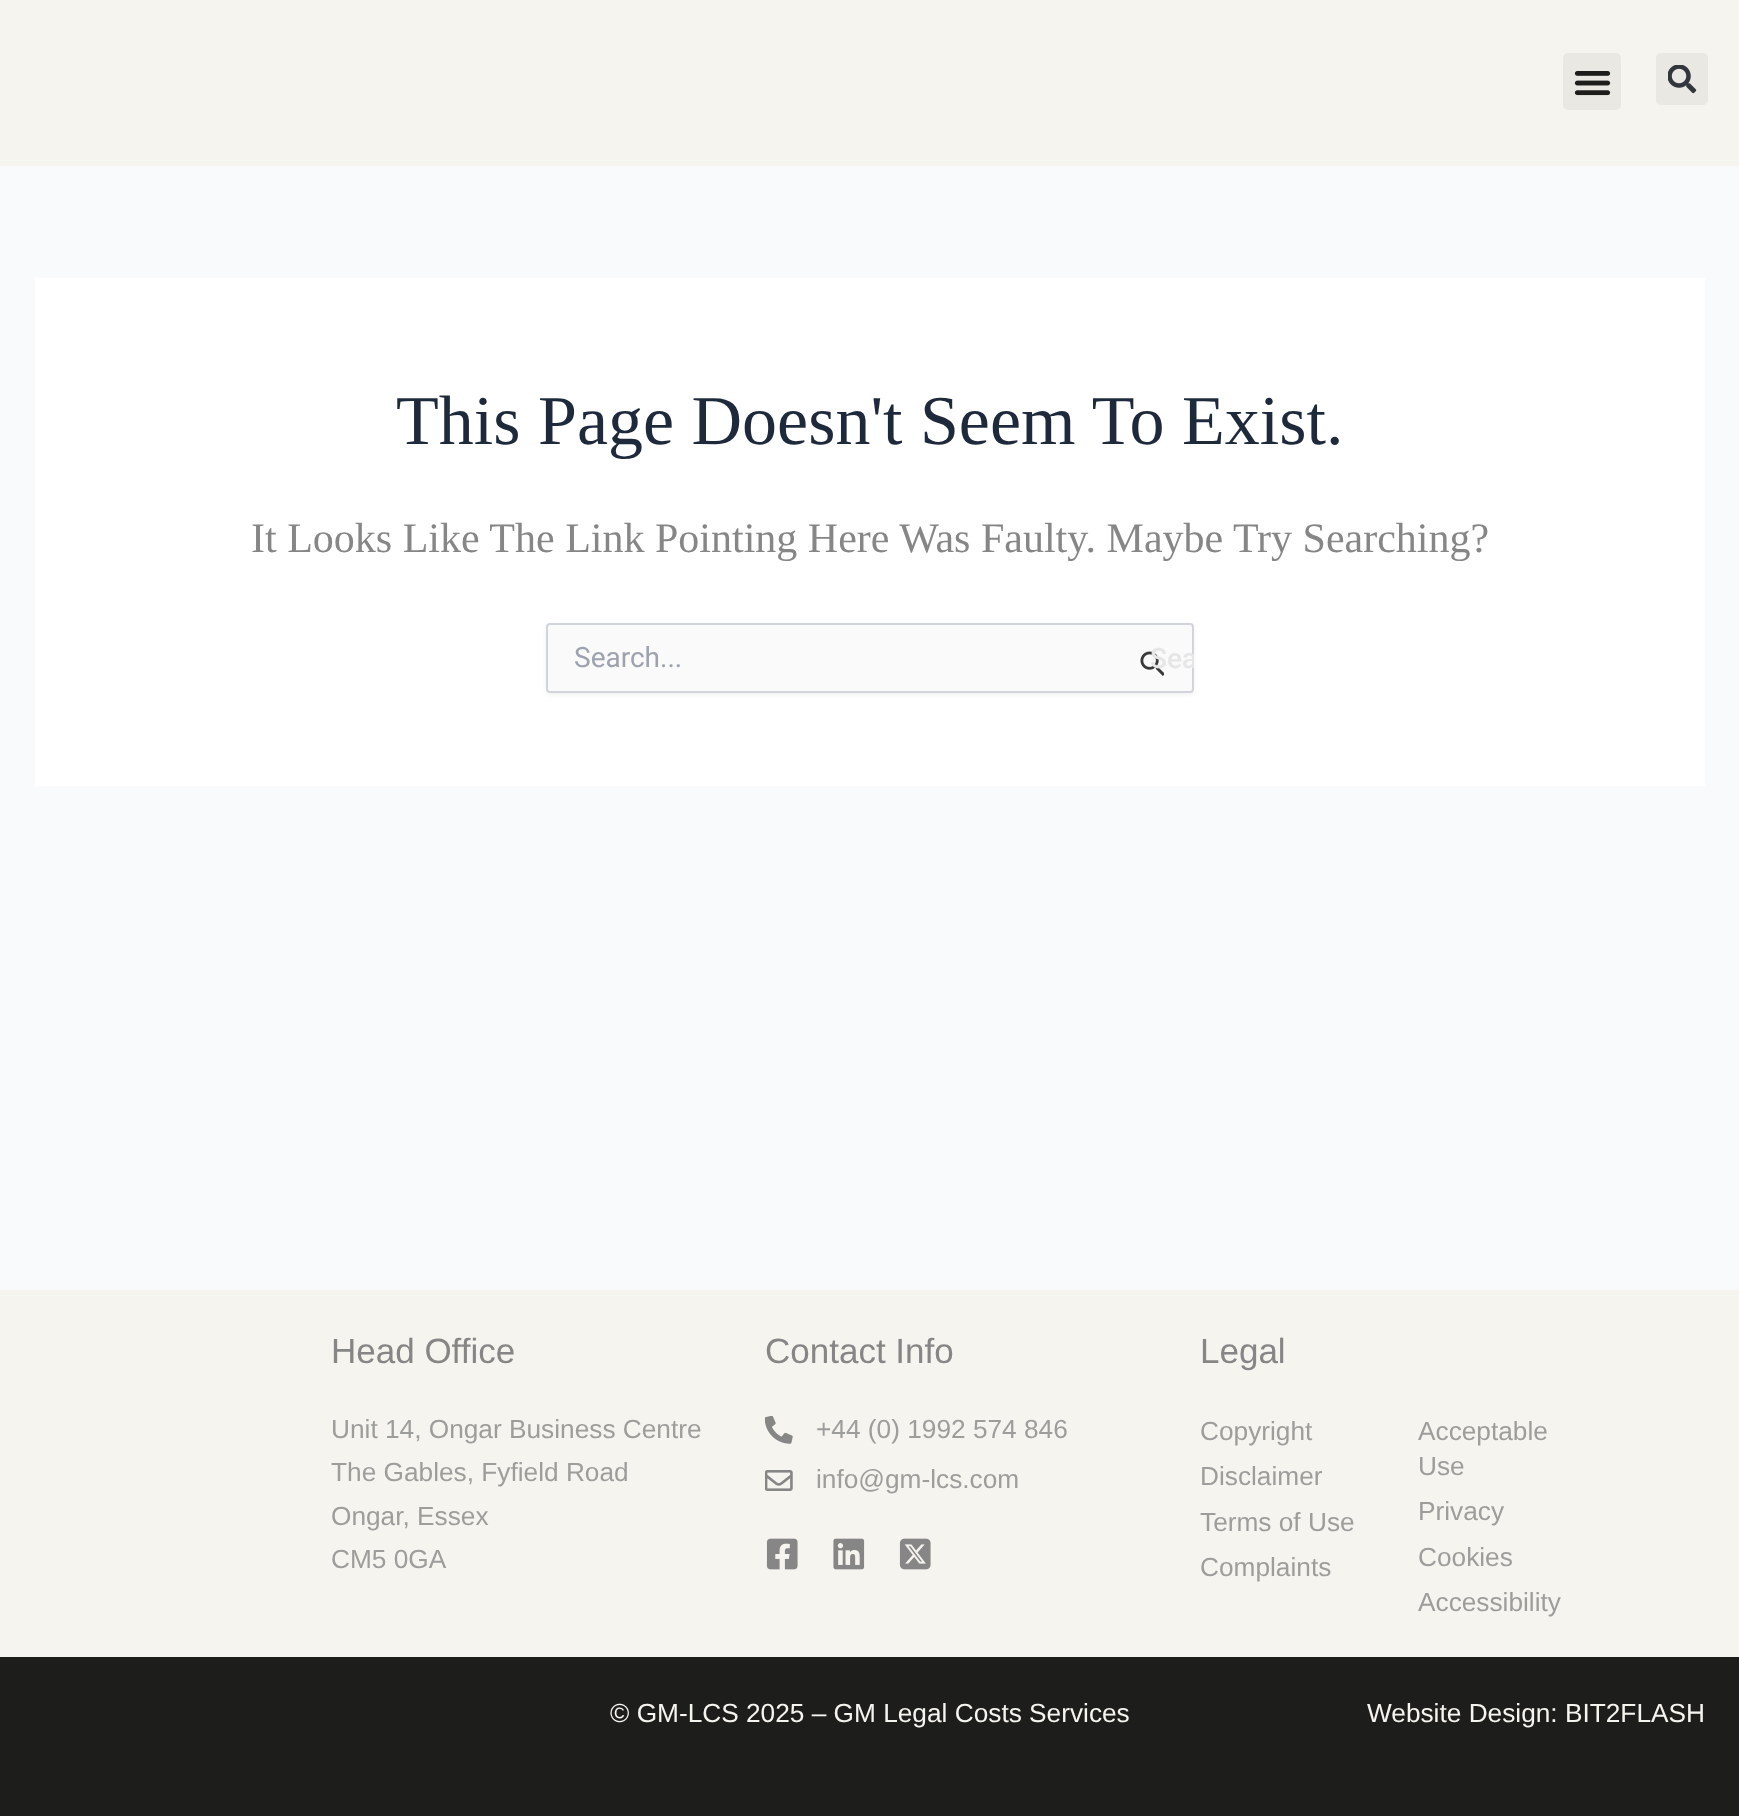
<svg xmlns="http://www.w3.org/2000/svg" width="1739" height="1816">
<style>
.a{font:70px Liberation Serif;fill:#1e293b}
.b{font:42px Liberation Serif;fill:#878686}
.c{font:28px Roboto;fill:#9ca3af}
.d{font:500 28px Roboto;fill:#e6e6e7}
.e{font:35px Liberation Sans;fill:#878686}
.f{font:26.25px Liberation Sans;fill:#9d9d9c}
.g{font:26.25px Liberation Sans;fill:#f6f4ef}
</style>
<defs>
<clipPath id="clip1"><rect x="1115" y="623" width="79" height="74" rx="4"/></clipPath>
</defs>
<rect width="100%" height="100%" fill="#f9fafb"/>
<path fill="#f6f4ef" d="M0 0h1739v166H0z"/>
<rect fill="#eae8e3" x="1563" y="53" width="58" height="57" rx="5"/>
<image href="1.png" x="1574" y="71" width="37" height="25"/>
<rect fill="#eae8e3" x="1656" y="53" width="52" height="52" rx="5"/>
<image href="2.png" x="1668" y="65" width="29" height="29"/>
<path fill="#fff" d="M35 278h1670v508H35z"/>
<rect fill="#0000000d" filter="blur(2px)" x="546" y="625" width="648" height="70" rx="4"/>
<rect fill="#fafafa" stroke="#d1d5db" stroke-width="2" x="547" y="624" width="646" height="68" rx="3"/>
<image href="3.png" x="1140" y="651" width="24" height="25"/>
<path fill="#f6f4ef" d="M0 1290h1739v367H0z"/>
<image href="4.png" x="765" y="1416" width="28" height="28"/>
<image href="5.png" x="765" y="1470" width="28" height="21"/>
<image href="6.png" x="766" y="1538" width="32" height="32"/>
<image href="7.png" x="833" y="1538" width="32" height="32"/>
<image href="8.png" x="899" y="1538" width="32" height="32"/>
<path fill="#1d1d1b" d="M0 1657h1739v159H0z"/>
<text class="a" x="396" y="444">This Page Doesn't Seem To Exist.</text>
<text class="b" x="251" y="552">It Looks Like The Link Pointing Here Was Faulty. Maybe Try Searching?</text>
<text class="c" x="574" y="667">Search...</text>
<g clip-path="url(#clip1)">
<text class="d" x="1150" y="668">Sea</text>
</g>
<text class="e" x="331" y="1363">Head Office</text>
<text class="f" x="331" y="1438">Unit 14, Ongar Business Centre</text>
<text class="f" x="331" y="1481">The Gables, Fyfield Road</text>
<text class="f" x="331" y="1525">Ongar, Essex</text>
<text class="f" x="331" y="1568">CM5 0GA</text>
<text class="e" x="765" y="1363">Contact Info</text>
<text class="f" x="816" y="1438">+44 (0) 1992 574 846</text>
<text class="f" x="816" y="1488">info@gm-lcs.com</text>
<text class="e" x="1200" y="1363">Legal</text>
<text class="f" x="1200" y="1440">Copyright</text>
<text class="f" x="1200" y="1485">Disclaimer</text>
<text class="f" x="1200" y="1531">Terms of Use</text>
<text class="f" x="1200" y="1576">Complaints</text>
<text class="f" x="1418" y="1440">Acceptable</text>
<text class="f" x="1418" y="1475">Use</text>
<text class="f" x="1418" y="1520">Privacy</text>
<text class="f" x="1418" y="1566">Cookies</text>
<text class="f" x="1418" y="1611">Accessibility</text>
<text class="g" x="610" y="1722">© GM-LCS 2025 – GM Legal Costs Services</text>
<text class="g" x="1367" y="1722">Website Design: BIT2FLASH</text>
</svg>
